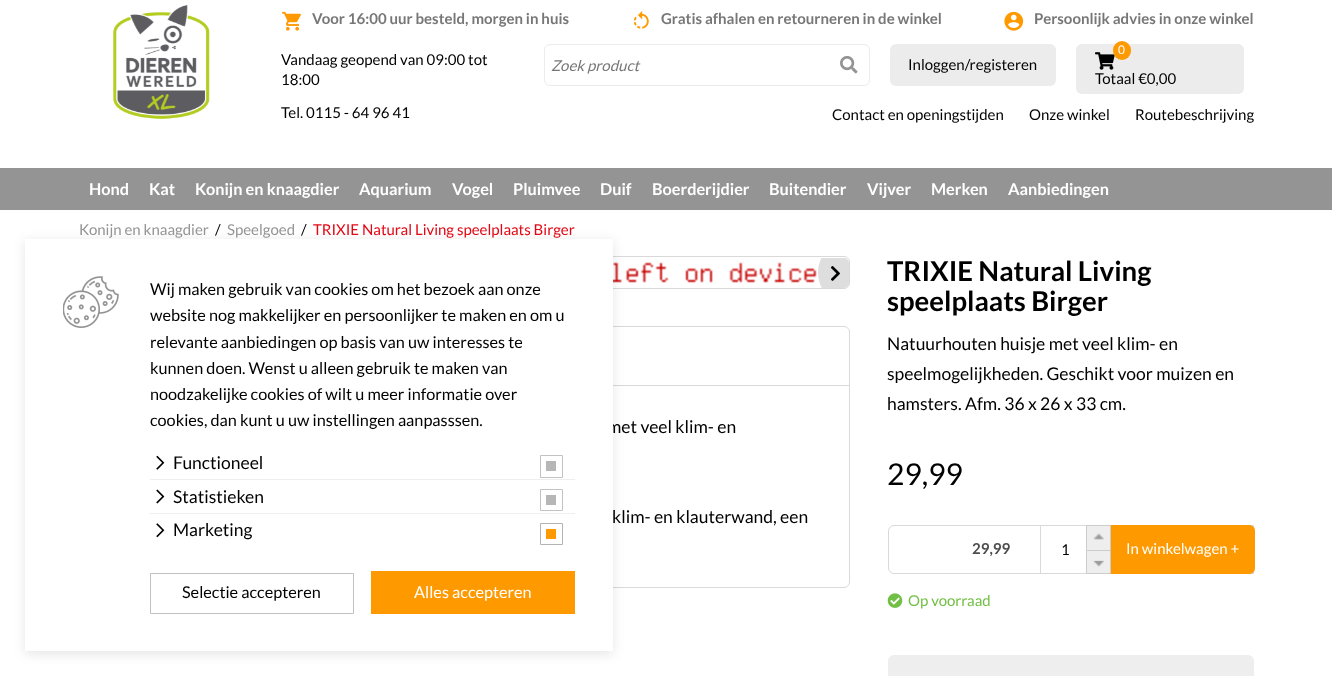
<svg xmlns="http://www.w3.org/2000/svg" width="1332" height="676">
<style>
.a{font:bold 15px Lato;fill:#777}
.b{font:15px Lato;fill:#000}
.c{font:italic 15px Lato;fill:#777}
.d{font:12px Lato;fill:#fff}
.e{font:bold 16.25px Lato;fill:#fff}
.f{font:15px Lato;fill:#949494}
.g{font:15px Lato;fill:#e30613}
.h{font:17.5px Lato;fill:#000}
.i{font:bold 27.5px Lato;fill:#000}
.j{font:30px Lato;fill:#000}
.k{font:bold 15px Lato;fill:#4d4d4d}
.l{font:15px Lato;fill:#fff}
.m{font:15px Lato;fill:#71bf44}
.n{font:16.25px Lato;fill:#000}
.o{font:16.25px Lato;fill:#fff}
</style>
<defs>
<clipPath id="clip1"><rect x="283" y="258" width="566" height="30" rx="5"/></clipPath>
</defs>
<rect width="100%" height="100%" fill="#fff"/>
<image href="1.png" x="113" y="5" width="97" height="114"/>
<image href="2.png" x="282" y="11" width="19" height="20"/>
<image href="3.png" x="633" y="11" width="16" height="18"/>
<image href="4.png" x="1004" y="11" width="20" height="20"/>
<rect fill="none" stroke="#ececec" x="544.5" y="44.5" width="325" height="41" rx="5.5"/>
<image href="5.png" x="840" y="56" width="18" height="18"/>
<rect fill="#ececec" x="890" y="44" width="166" height="42" rx="6"/>
<rect fill="#ececec" x="1076" y="44" width="168" height="50" rx="6"/>
<image href="6.png" x="1095" y="52" width="20" height="18"/>
<rect fill="#f90" x="1113" y="41" width="18" height="19" rx="9"/>
<path fill="#949494" d="M0 168h1332v42H0z"/>
<rect fill="none" stroke="#d9d9d9" x="281.5" y="256.5" width="568" height="32" rx="5.5"/>
<image href="7.png" x="613" y="260" width="204" height="28"/>
<g clip-path="url(#clip1)">
<rect fill="#dedede" x="818" y="241" width="62" height="63" rx="31"/>
</g>
<image href="8.png" x="831" y="266" width="9" height="15"/>
<rect fill="none" stroke="#d9d9d9" x="79.5" y="326.5" width="770" height="261" rx="5.5"/>
<path fill="#d9d9d9" d="M613 385h236v1H613z"/>
<path fill="none" stroke="#d9d9d9" d="M894 525.5h359.5v48h-359.5c-3 0-5.5-2.5-5.5-5.5v-37c0-3 2.5-5.5 5.5-5.5z"/>
<path fill="none" stroke="#d9d9d9" d="M1040.5 525.5h212v48H1040.5z"/>
<path fill="#eee" d="M1087 526h23v24H1087z"/>
<image href="9.png" x="1093" y="533" width="11" height="7"/>
<path fill="#f90" d="M1110 525h139c3.5 0 6 2.5 6 6v37c0 3.5-2.5 6-6 6h-139z"/>
<path fill="#ccc" d="M1086 525h25v1H1086z"/>
<path fill="#ccc" d="M1110 525h1v25H1110z"/>
<path fill="#ccc" d="M1086 525h1v25H1086z"/>
<path fill="#eee" d="M1087 551h23v22H1087z"/>
<image href="10.png" x="1093" y="560" width="11" height="7"/>
<path fill="none" stroke="#ccc" d="M1086.5 550.5h24v23H1086.5z"/>
<image href="11.png" x="887" y="593" width="16" height="15"/>
<rect fill="#eee" x="888" y="655" width="366" height="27" rx="6"/>
<path fill="#0000001a" filter="blur(6px)" d="M25 241h588v413H25z"/>
<text class="a" x="312" y="24">Voor 16:00 uur besteld, morgen in huis</text>
<text class="a" x="661" y="24">Gratis afhalen en retourneren in de winkel</text>
<text class="a" x="1034" y="24">Persoonlijk advies in onze winkel</text>
<text class="b" x="281" y="65">Vandaag geopend van 09:00 tot</text>
<text class="b" x="281" y="85">18:00</text>
<text class="b" x="281" y="118">Tel. 0115 - 64 96 41</text>
<text class="c" x="551" y="71">Zoek product</text>
<text class="b" x="908" y="70">Inloggen/registeren</text>
<text class="d" x="1118" y="54">0</text>
<text class="b" x="1095" y="84">Totaal €0,00</text>
<text class="b" x="832" y="120">Contact en openingstijden</text>
<text class="b" x="1029" y="120">Onze winkel</text>
<text class="b" x="1135" y="120">Routebeschrijving</text>
<text class="e" x="89" y="195">Hond</text>
<text class="e" x="149" y="195">Kat</text>
<text class="e" x="195" y="195">Konijn en knaagdier</text>
<text class="e" x="359" y="195">Aquarium</text>
<text class="e" x="452" y="195">Vogel</text>
<text class="e" x="513" y="195">Pluimvee</text>
<text class="e" x="600" y="195">Duif</text>
<text class="e" x="652" y="195">Boerderijdier</text>
<text class="e" x="769" y="195">Buitendier</text>
<text class="e" x="867" y="195">Vijver</text>
<text class="e" x="931" y="195">Merken</text>
<text class="e" x="1008" y="195">Aanbiedingen</text>
<text class="f" x="79" y="235">Konijn en knaagdier</text>
<text class="b" x="215" y="235">/</text>
<text class="f" x="227" y="235">Speelgoed</text>
<text class="b" x="301" y="235">/</text>
<text class="g" x="313" y="235">TRIXIE Natural Living speelplaats Birger</text>
<text class="h" x="607" y="433">met veel klim- en</text>
<text class="h" x="612" y="523">klim- en klauterwand, een</text>
<text class="i" x="887" y="281">TRIXIE Natural Living</text>
<text class="i" x="887" y="311">speelplaats Birger</text>
<text class="h" x="887" y="350">Natuurhouten huisje met veel klim- en</text>
<text class="h" x="887" y="380">speelmogelijkheden. Geschikt voor muizen en</text>
<text class="h" x="887" y="410">hamsters. Afm. 36 x 26 x 33 cm.</text>
<text class="j" x="887" y="485">29,99</text>
<text class="k" x="972" y="554">29,99</text>
<text class="b" x="1061" y="555">1</text>
<text class="l" x="1126" y="554">In winkelwagen +</text>
<text class="m" x="908" y="606">Op voorraad</text>
<path fill="#fff" d="M25 239h588v412H25z"/>
<image href="12.png" x="63" y="276" width="56" height="52"/>
<text class="n" x="150" y="295">Wij maken gebruik van cookies om het bezoek aan onze</text>
<text class="n" x="150" y="321">website nog makkelijker en persoonlijker te maken en om u</text>
<text class="n" x="150" y="348">relevante aanbiedingen op basis van uw interesses te</text>
<text class="n" x="150" y="374">kunnen doen. Wenst u alleen gebruik te maken van</text>
<text class="n" x="150" y="400">noodzakelijke cookies of wilt u meer informatie over</text>
<text class="n" x="150" y="426">cookies, dan kunt u uw instellingen aanpasssen.</text>
<image href="13.png" x="156" y="455" width="9" height="15"/>
<text class="h" x="173" y="469">Functioneel</text>
<path fill="none" stroke="#c2c2c2" d="M540.5 455.5h22v22H540.5z"/>
<path fill="#b6b6b6" d="M546 461h10v10H546z"/>
<path fill="#eee" d="M150 479h425v1H150z"/>
<image href="14.png" x="156" y="489" width="9" height="15"/>
<text class="h" x="173" y="503">Statistieken</text>
<path fill="none" stroke="#c2c2c2" d="M540.5 489.5h22v21H540.5z"/>
<path fill="#b6b6b6" d="M546 495h10v10H546z"/>
<path fill="#eee" d="M150 513h425v1H150z"/>
<image href="15.png" x="156" y="523" width="9" height="15"/>
<text class="h" x="173" y="536">Marketing</text>
<path fill="none" stroke="#b3b3b3" d="M540.5 523.5h22v21H540.5z"/>
<path fill="#f90" d="M546 529h10v10H546z"/>
<path fill="none" stroke="#c0c0c0" d="M150.5 573.5h203v40H150.5z"/>
<text class="n" x="182" y="598">Selectie accepteren</text>
<path fill="#f90" d="M371 571h204v43H371z"/>
<text class="o" x="414" y="598">Alles accepteren</text>
</svg>
